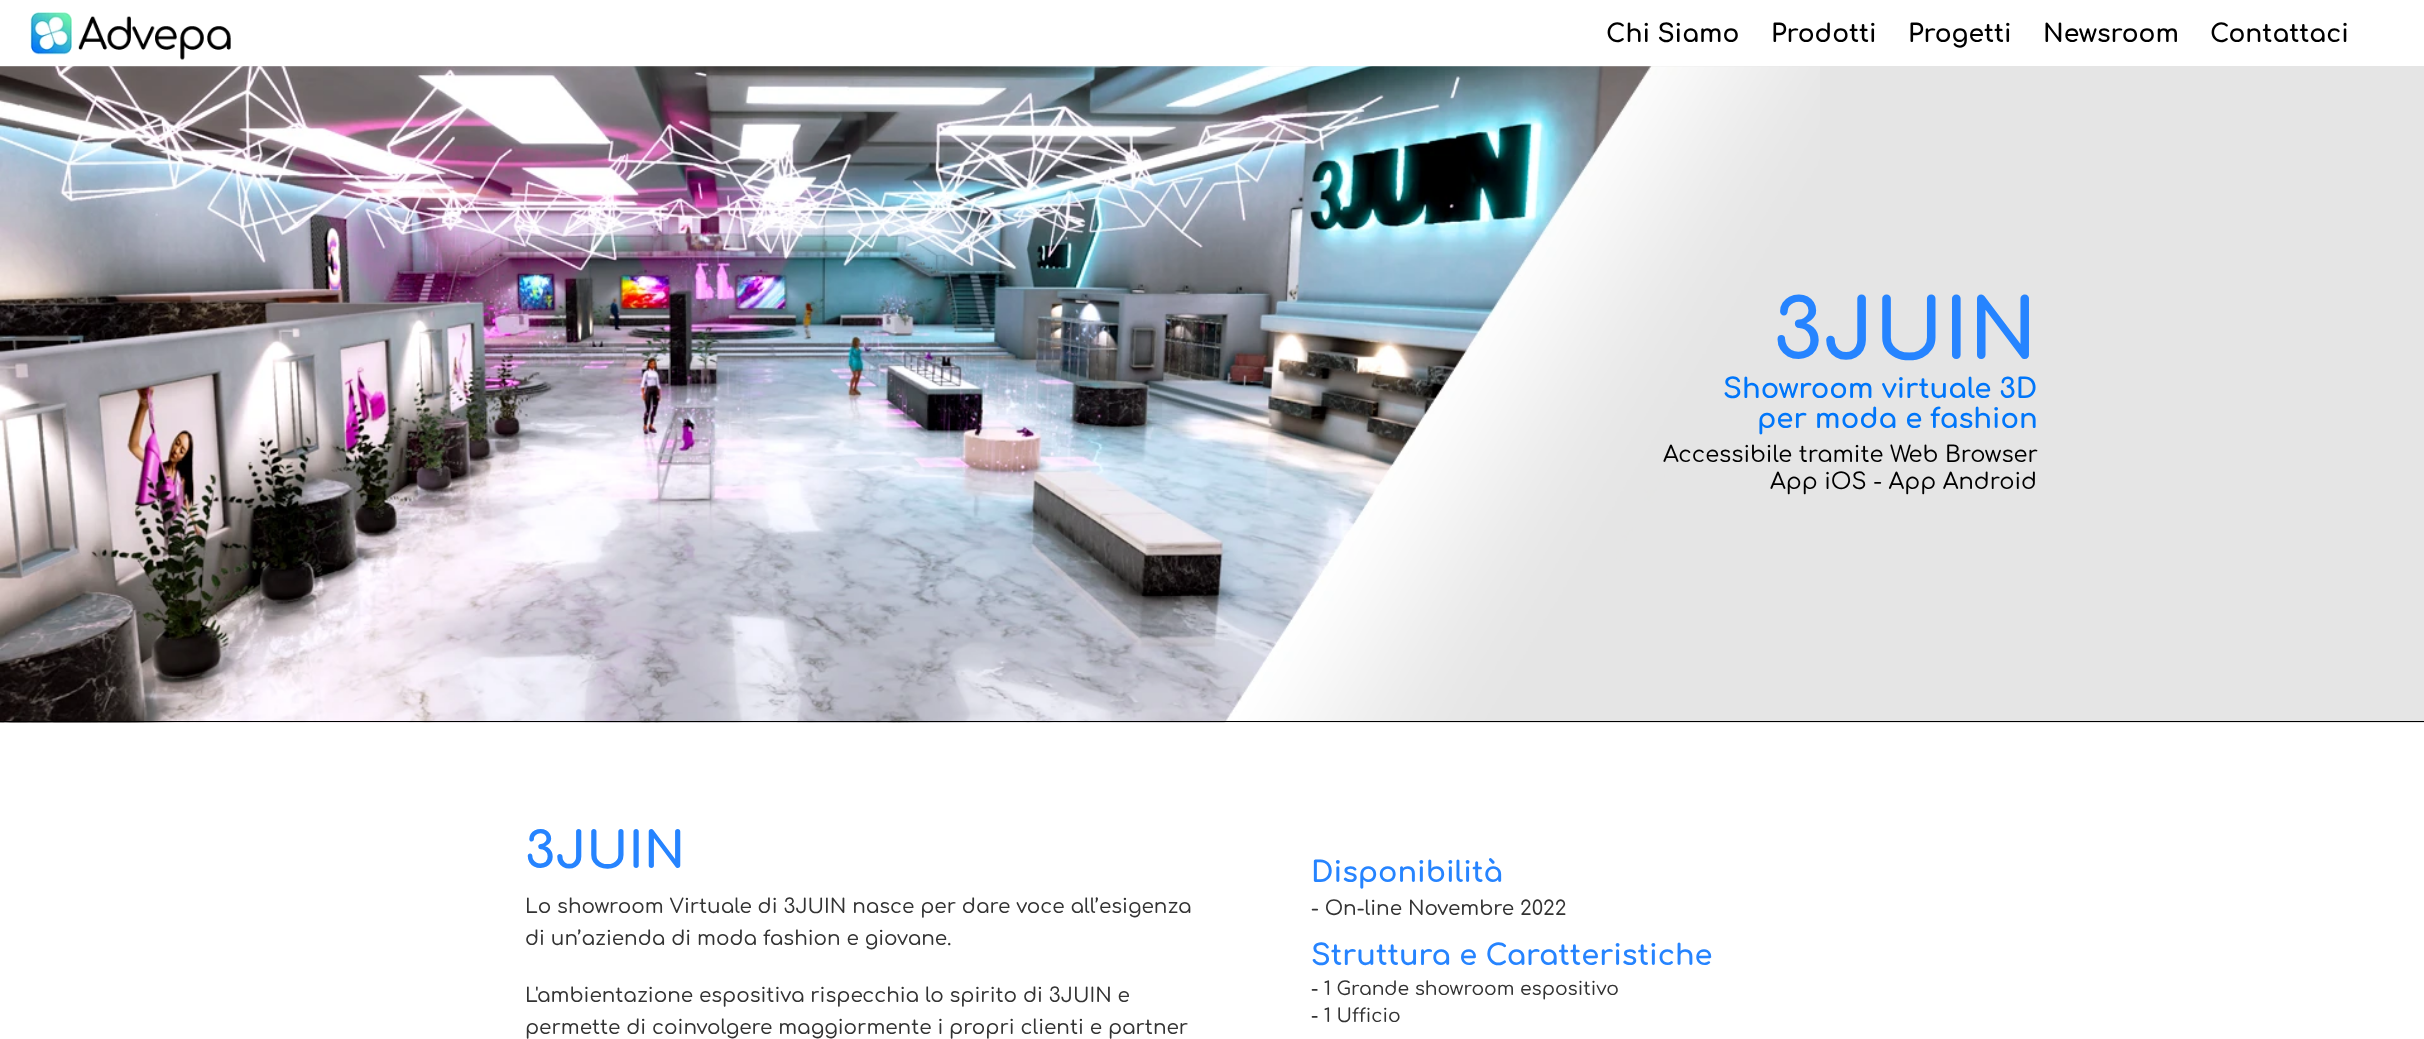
<svg xmlns="http://www.w3.org/2000/svg" width="2424" height="1039">
<style>
.a{font:bold 25px Comfortaa;fill:#000}
.b{font:bold 82.5px Comfortaa;fill:#2684ff}
.c{font:bold 27.5px Comfortaa;fill:#0076fa}
.d{font:500 22.5px Comfortaa;fill:#000}
.e{font:bold 50px Comfortaa;fill:#2684ff}
.f{font:500 20px Comfortaa;fill:#333}
.g{font:bold 28.75px Comfortaa;fill:#2684ff}
.h{font:500 18.75px Comfortaa;fill:#333}
</style>
<rect width="100%" height="100%" fill="#fff"/>
<image href="1.png" x="30" y="12" width="201" height="48"/>
<path fill="#e5e5e5" d="M0 66h2424v657H0z"/>
<image href="2.png" x="0" y="66" width="1820" height="657"/>
<path fill="#000" d="M0 721h2424v1H0z"/>
<text class="a" x="1606" y="42">Chi Siamo</text>
<text class="a" x="1771" y="42">Prodotti</text>
<text class="a" x="1908" y="42">Progetti</text>
<text class="a" x="2043" y="42">Newsroom</text>
<text class="a" x="2210" y="42">Contattaci</text>
<text class="b" x="1773" y="359">3JUIN</text>
<text class="c" x="1723" y="398">Showroom virtuale 3D</text>
<text class="c" x="1757" y="428">per moda e fashion</text>
<text class="d" x="1663" y="462">Accessibile tramite Web Browser</text>
<text class="d" x="1770" y="489">App iOS - App Android</text>
<text class="e" x="525" y="868">3JUIN</text>
<text class="f" x="525" y="913">Lo showroom Virtuale di 3JUIN nasce per dare voce all’esigenza</text>
<text class="f" x="525" y="945">di un’azienda di moda fashion e giovane.</text>
<text class="f" x="525" y="1002">L'ambientazione espositiva rispecchia lo spirito di 3JUIN e</text>
<text class="f" x="525" y="1034">permette di coinvolgere maggiormente i propri clienti e partner</text>
<text class="g" x="1311" y="882">Disponibilità</text>
<text class="f" x="1311" y="915">- On-line Novembre 2022</text>
<text class="g" x="1311" y="965">Struttura e Caratteristiche</text>
<text class="h" x="1311" y="995">- 1 Grande showroom espositivo</text>
<text class="h" x="1311" y="1022">- 1 Ufficio</text>
</svg>
